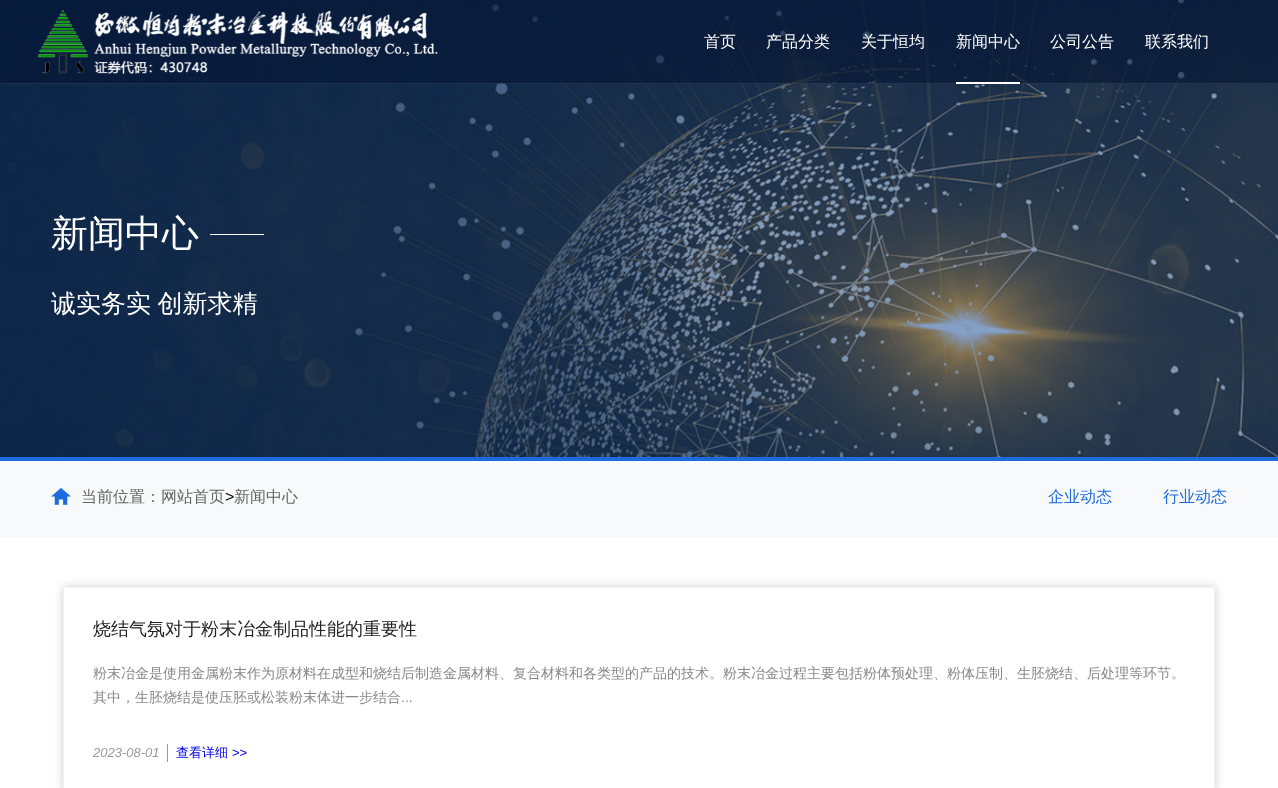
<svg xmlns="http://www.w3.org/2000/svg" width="1278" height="788">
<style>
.a{font:500 16px WenQuanYi Zen Hei;fill:#fff}
.b{font:500 37px WenQuanYi Zen Hei;fill:#fff}
.c{font:500 25px WenQuanYi Zen Hei;fill:#fff}
.d{font:500 16px WenQuanYi Zen Hei;fill:#666}
.e{font:16px Liberation Sans;fill:#000}
.f{font:500 16px WenQuanYi Zen Hei;fill:#1d6bdd}
.g{font:500 18px WenQuanYi Zen Hei;fill:#222}
.h{font:500 14px WenQuanYi Zen Hei;fill:#888}
.i{font:14px Liberation Sans;fill:#888}
.j{font:italic 13px Liberation Sans;fill:#999}
.k{font:500 13px WenQuanYi Zen Hei;fill:#00e}
.l{font:13px Liberation Sans;fill:#00e}
</style>
<defs>
<clipPath id="clip1"><path d="M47 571h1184v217h-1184zm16 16h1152v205h-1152z" clip-rule="evenodd"/></clipPath>
</defs>
<rect width="100%" height="100%" fill="#fff"/>
<image href="2.png" x="0" y="0" width="1278" height="457"/>
<path fill="#0412328c" d="M0 0h1278v84H0z"/>
<image href="1.png" x="38" y="10" width="400" height="64"/>
<path fill="#fff" d="M956 82h64v2H956z"/>
<path fill="#ffffff1a" d="M0 83h1278v1H0z"/>
<path fill="#fff" d="M210 234h54v1H210z"/>
<path fill="#f7f9fa" d="M0 461h1278v76H0z"/>
<path fill="#1d6bdd" d="M0 457h1278v4H0z"/>
<image href="3.png" x="51" y="488" width="20" height="17"/>
<g clip-path="url(#clip1)">
<path fill="#00000033" filter="blur(5px)" d="M63 587h1152v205H63z"/>
</g>
<path fill="none" stroke="#f2f2f2" d="M63.5 587.5h1151v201H63.5z"/>
<path fill="#999" d="M167 744h1v18H167z"/>
<text class="a" x="704" y="47">首页</text>
<text class="a" x="766" y="47">产品分类</text>
<text class="a" x="861" y="47">关于恒均</text>
<text class="a" x="956" y="47">新闻中心</text>
<text class="a" x="1050" y="47">公司公告</text>
<text class="a" x="1145" y="47">联系我们</text>
<text class="b" x="51" y="246">新闻中心</text>
<text class="c" x="51" y="312" word-spacing="-1">诚实务实 创新求精</text>
<text class="d" x="81" y="502">当前位置：网站首页</text>
<text class="e" x="225" y="502">&gt;</text>
<text class="d" x="234" y="502">新闻中心</text>
<text class="f" x="1048" y="502">企业动态</text>
<text class="f" x="1163" y="502">行业动态</text>
<text class="g" x="93" y="635">烧结气氛对于粉末冶金制品性能的重要性</text>
<text class="h" x="93" y="678">粉末冶金是使用金属粉末作为原材料在成型和烧结后制造金属材料、复合材料和各类型的产品的技术。粉末冶金过程主要包括粉体预处理、粉体压制、生胚烧结、后处理等环节。</text>
<text class="h" x="93" y="702">其中，生胚烧结是使压胚或松装粉末体进一步结合</text>
<text class="i" x="401" y="702">...</text>
<text class="j" x="93" y="757">2023-08-01</text>
<text class="k" x="176" y="757">查看详细</text>
<text class="l" x="232" y="757">&gt;&gt;</text>
</svg>
